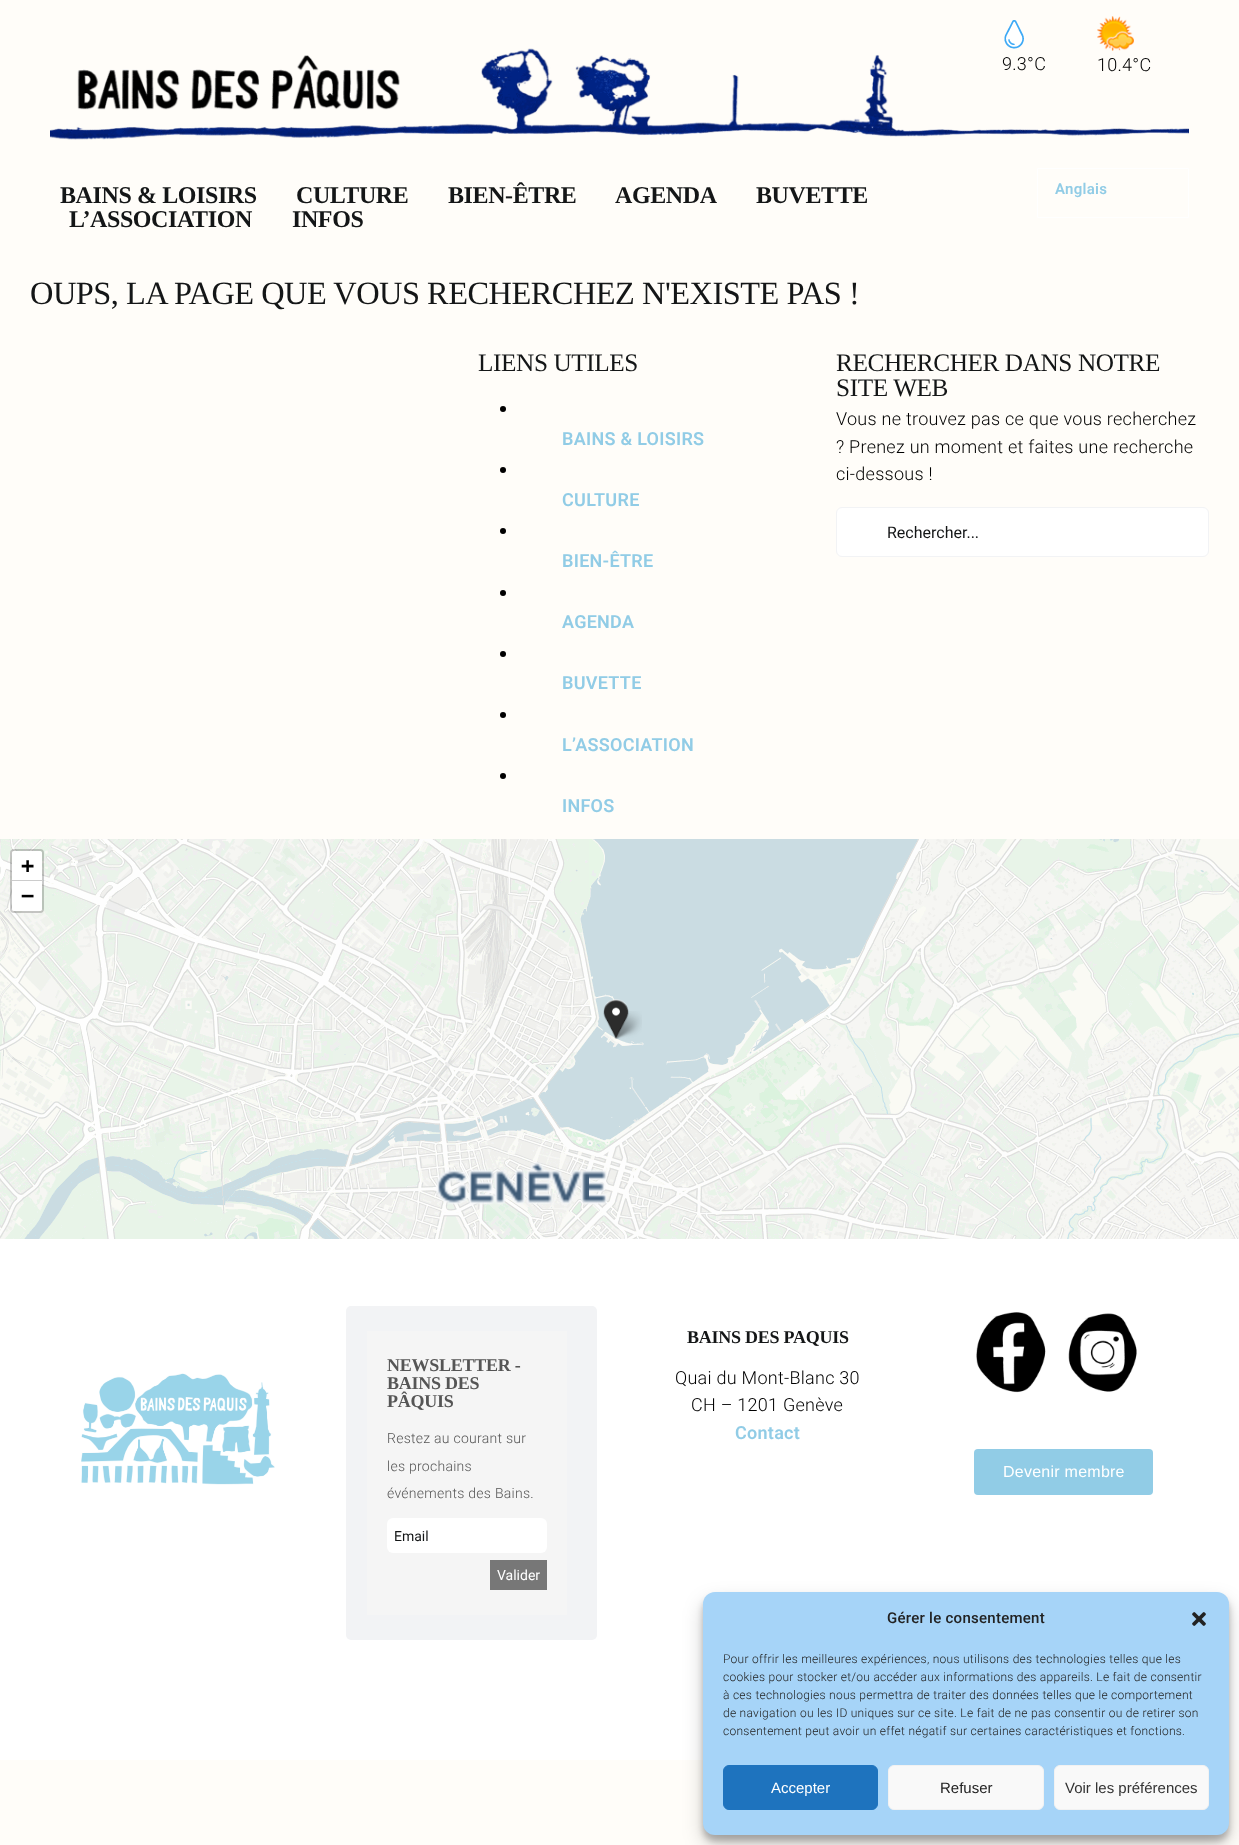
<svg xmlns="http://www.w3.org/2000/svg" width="1239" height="1845">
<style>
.a{font:300 18px Roboto;letter-spacing:0.27px;fill:#000}
.b{font:bold 24px Liberation Serif;letter-spacing:-0.4px;fill:#141617}
.c{font:600 15px Roboto;letter-spacing:0.27px;fill:#91cce6}
.d{font:32.4px Liberation Serif;letter-spacing:-0.5px;fill:#141617}
.e{font:25.25px Liberation Serif;letter-spacing:-0.4px;fill:#141617}
.f{font:600 18px Roboto;letter-spacing:0.27px;fill:#91cce6}
.g{font:16px Roboto;fill:#141617}
.h{font:bold 22px DejaVu Sans Mono;letter-spacing:0.27px;fill:#000}
.i{font:bold 18px Liberation Serif;letter-spacing:-0.25px;fill:#555}
.j{font:300 14px Roboto;letter-spacing:0.27px;fill:#555}
.k{font:14px Roboto;fill:#141617}
.l{font:14px Roboto;fill:#fff}
.m{font:bold 18px Liberation Serif;letter-spacing:-0.25px;fill:#141617}
.n{font:16px Liberation Sans;letter-spacing:0.25px;fill:#fff}
.o{font:500 15px Roboto;letter-spacing:0.27px;fill:#222}
.p{font:300 12px Roboto;letter-spacing:0.27px;fill:#222}
.q{font:15px Liberation Sans;fill:#fff}
.r{font:15px Liberation Sans;fill:#222}
.s{font:15px Liberation Sans;fill:#333}
</style>
<rect width="100%" height="100%" fill="#fffdf9"/>
<image href="1.png" x="50" y="48" width="1139" height="92"/>
<image href="2.png" x="1004" y="20" width="20" height="29"/>
<image href="3.png" x="1097" y="16" width="37" height="35"/>
<path fill="none" stroke="#fff" d="M1037.5 168.5h151v49H1037.5z"/>
<circle fill="#000" cx="503" cy="409" r="3"/>
<circle fill="#000" cx="503" cy="470" r="3"/>
<circle fill="#000" cx="503" cy="531" r="3"/>
<circle fill="#000" cx="503" cy="593" r="3"/>
<circle fill="#000" cx="503" cy="654" r="3"/>
<circle fill="#000" cx="503" cy="715" r="3"/>
<circle fill="#000" cx="503" cy="776" r="3"/>
<rect fill="#fff" stroke="#f2f3f5" x="836.5" y="507.5" width="372" height="49" rx="5.5"/>
<image href="4.png" x="0" y="839" width="77" height="201"/>
<image href="5.png" x="77" y="839" width="256" height="201"/>
<image href="6.png" x="333" y="839" width="256" height="201"/>
<image href="7.png" x="589" y="839" width="256" height="201"/>
<image href="8.png" x="845" y="839" width="256" height="201"/>
<image href="9.png" x="1101" y="839" width="138" height="201"/>
<image href="10.png" x="0" y="1040" width="77" height="199"/>
<image href="11.png" x="77" y="1040" width="256" height="199"/>
<image href="12.png" x="333" y="1040" width="256" height="199"/>
<image href="13.png" x="589" y="1040" width="256" height="199"/>
<image href="14.png" x="845" y="1040" width="256" height="199"/>
<image href="15.png" x="1101" y="1040" width="138" height="199"/>
<image href="16.png" x="436" y="1162" width="153" height="43"/>
<image href="17.png" x="589" y="1169" width="18" height="36"/>
<image href="19.png" x="612" y="1011" width="30" height="28"/>
<image href="18.png" x="603" y="999" width="26" height="40"/>
<rect fill="none" stroke="#00000033" stroke-width="2" x="11" y="850" width="32" height="62" rx="3"/>
<path fill="#fff" d="M14 851h26c1 0 2 1 2 2v28h-30v-28c0-1 1-2 2-2z"/>
<path fill="#ccc" d="M12 880h30v1H12z"/>
<path fill="#fff" d="M12 881h30v28c0 1-1 2-2 2h-26c-1 0-2-1-2-2z"/>
<path fill="#fff" d="M0 1239h1239v521H0z"/>
<image href="20.png" x="81" y="1373" width="194" height="112"/>
<rect fill="#f2f3f5" x="346" y="1306" width="251" height="334" rx="5"/>
<path fill="#f5f5f5" d="M367 1331h200v284H367z"/>
<rect fill="#fff" x="387" y="1518" width="160" height="35" rx="6"/>
<path fill="#777" d="M490 1560h57v30H490z"/>
<image href="21.png" x="976" y="1312" width="70" height="81"/>
<image href="22.png" x="1068" y="1313" width="69" height="79"/>
<rect fill="#91cce6" x="974" y="1449" width="179" height="46" rx="4"/>
<rect fill="#0000003b" filter="blur(3px)" x="703" y="1598" width="526" height="243" rx="12"/>
<rect fill="#00000030" filter="blur(10px)" x="703" y="1602" width="526" height="243" rx="12"/>
<rect fill="#a6d4f8" x="703" y="1592" width="526" height="243" rx="12"/>
<image href="23.png" x="1192" y="1612" width="14" height="14"/>
<rect fill="#1e73be" stroke="#1e73be" x="723.5" y="1765.5" width="154" height="44" rx="5.5"/>
<rect fill="#f9f9f9" stroke="#f2f2f2" x="888.5" y="1765.5" width="155" height="44" rx="5.5"/>
<rect fill="#f9f9f9" stroke="#f2f2f2" x="1054.5" y="1765.5" width="154" height="44" rx="5.5"/>
<text class="a" x="1002" y="70">9.3°C</text>
<text class="a" x="1097" y="71">10.4°C</text>
<text class="b" x="60" y="203">BAINS &amp; LOISIRS</text>
<text class="b" x="296" y="203">CULTURE</text>
<text class="b" x="448" y="203">BIEN-ÊTRE</text>
<text class="b" x="615" y="203">AGENDA</text>
<text class="b" x="756" y="203">BUVETTE</text>
<text class="b" x="69" y="227">L’ASSOCIATION</text>
<text class="b" x="292" y="227">INFOS</text>
<text class="c" x="1055" y="194">Anglais</text>
<text class="d" x="30" y="304">OUPS, LA PAGE QUE VOUS RECHERCHEZ N'EXISTE PAS !</text>
<text class="e" x="478" y="371">LIENS UTILES</text>
<text class="f" x="562" y="445">BAINS &amp; LOISIRS</text>
<text class="f" x="562" y="506">CULTURE</text>
<text class="f" x="562" y="567">BIEN-ÊTRE</text>
<text class="f" x="562" y="628">AGENDA</text>
<text class="f" x="562" y="689">BUVETTE</text>
<text class="f" x="562" y="751">L’ASSOCIATION</text>
<text class="f" x="562" y="812">INFOS</text>
<text class="e" x="836" y="371">RECHERCHER DANS NOTRE</text>
<text class="e" x="836" y="396">SITE WEB</text>
<text class="a" x="836" y="425">Vous ne trouvez pas ce que vous recherchez</text>
<text class="a" x="836" y="453">? Prenez un moment et faites une recherche</text>
<text class="a" x="836" y="480">ci-dessous !</text>
<text class="g" x="887" y="538">Rechercher...</text>
<text class="h" x="21" y="873">+</text>
<text class="h" x="21" y="903">−</text>
<text class="i" x="387" y="1371">NEWSLETTER -</text>
<text class="i" x="387" y="1389">BAINS DES</text>
<text class="i" x="387" y="1407">PÂQUIS</text>
<text class="j" x="387" y="1443">Restez au courant sur</text>
<text class="j" x="387" y="1471">les prochains</text>
<text class="j" x="387" y="1498">événements des Bains.</text>
<text class="k" x="394" y="1541">Email</text>
<text class="l" x="497" y="1580">Valider</text>
<text class="m" x="687" y="1343">BAINS DES PAQUIS</text>
<text class="a" x="675" y="1384">Quai du Mont-Blanc 30</text>
<text class="a" x="691" y="1411">CH – 1201 Genève</text>
<text class="f" x="735" y="1439">Contact</text>
<text class="n" x="1003" y="1477">Devenir membre</text>
<text class="o" x="887" y="1623">Gérer le consentement</text>
<text class="p" x="723" y="1663">Pour offrir les meilleures expériences, nous utilisons des technologies telles que les</text>
<text class="p" x="723" y="1681">cookies pour stocker et/ou accéder aux informations des appareils. Le fait de consentir</text>
<text class="p" x="723" y="1699">à ces technologies nous permettra de traiter des données telles que le comportement</text>
<text class="p" x="723" y="1717">de navigation ou les ID uniques sur ce site. Le fait de ne pas consentir ou de retirer son</text>
<text class="p" x="723" y="1735">consentement peut avoir un effet négatif sur certaines caractéristiques et fonctions.</text>
<text class="q" x="771" y="1793">Accepter</text>
<text class="r" x="940" y="1793">Refuser</text>
<text class="s" x="1065" y="1793">Voir les préférences</text>
</svg>
